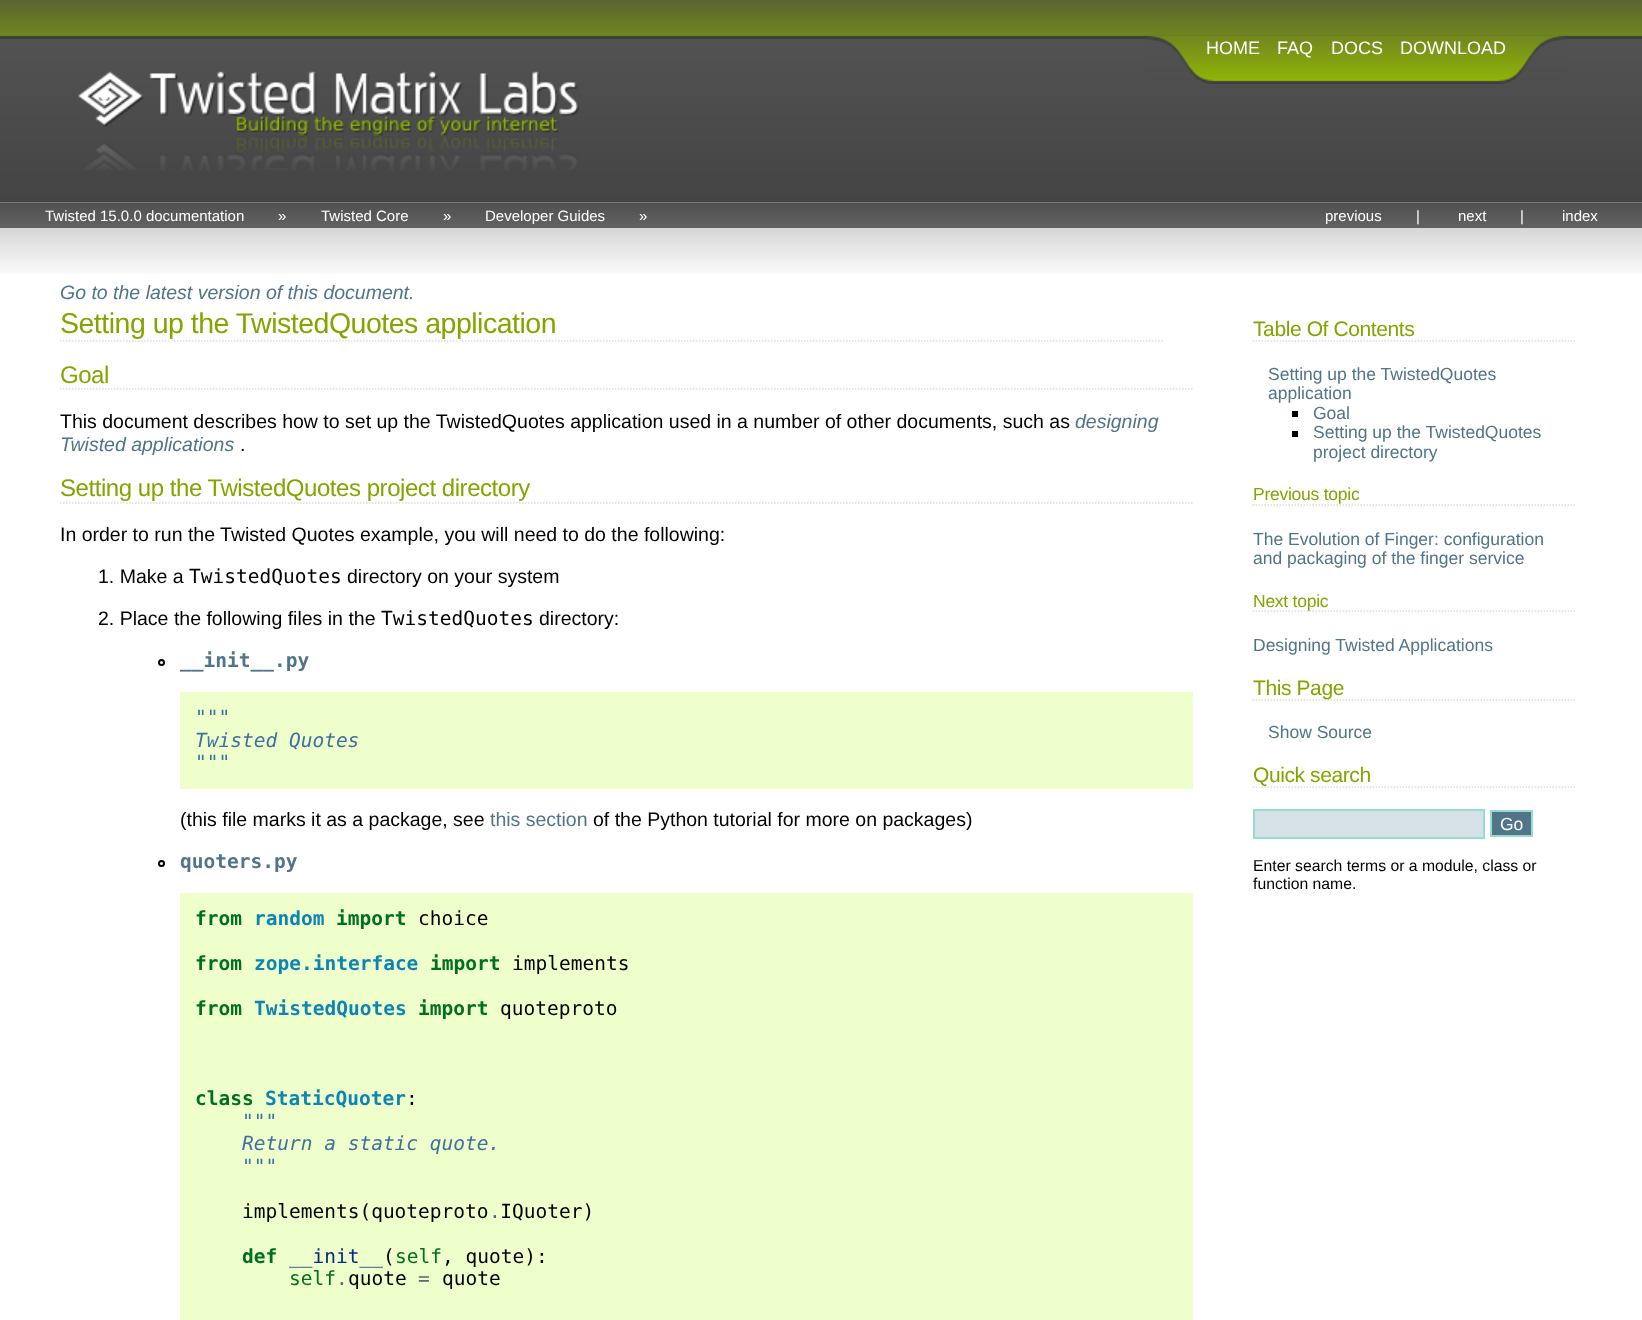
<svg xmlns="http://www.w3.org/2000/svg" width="1642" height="1320">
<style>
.a{font:18px Liberation Sans;fill:#fff}
.b{font:15px Liberation Sans;fill:#fff}
.c{font:italic 19.5px Liberation Sans;fill:#517489}
.d{font:28.5px Liberation Sans;letter-spacing:-0.5px;fill:#83a501}
.e{font:24px Liberation Sans;letter-spacing:-0.45px;fill:#83a501}
.f{font:19.5px Liberation Sans;fill:#000}
.g{font:19.5px DejaVu Sans Mono;fill:#000}
.h{font:bold 19.5px DejaVu Sans Mono;fill:#517489}
.i{font:italic 19.5px DejaVu Sans Mono;fill:#4070a0}
.j{font:19.5px Liberation Sans;fill:#517489}
.k{font:bold 19.5px DejaVu Sans Mono;fill:#007020}
.l{font:bold 19.5px DejaVu Sans Mono;fill:#0e84b5}
.m{font:19.5px DejaVu Sans Mono;fill:#666}
.n{font:19.5px DejaVu Sans Mono;fill:#06287e}
.o{font:19.5px DejaVu Sans Mono;fill:#007020}
.p{font:21px Liberation Sans;letter-spacing:-0.4px;fill:#83a501}
.q{font:17.5px Liberation Sans;fill:#517489}
.r{font:17.5px Liberation Sans;letter-spacing:-0.25px;fill:#83a501}
.s{font:17.5px Liberation Sans;fill:#fff}
.t{font:15.75px Liberation Sans;fill:#000}
</style>
<rect width="100%" height="100%" fill="#fff"/>
<image href="1.png" x="0" y="39" width="1642" height="164"/>
<image href="2.png" x="0" y="0" width="1642" height="39"/>
<image href="3.png" x="1144" y="36" width="424" height="48"/>
<image href="4.png" x="77" y="71" width="503" height="99"/>
<image href="5.png" x="0" y="202" width="1642" height="26"/>
<image href="6.png" x="0" y="228" width="1642" height="46"/>
<path fill="none" stroke="#ddd" stroke-width="1.5" stroke-dasharray="1.5 1.5" d="M60 341h1104"/>
<path fill="none" stroke="#ddd" stroke-width="1.5" stroke-dasharray="1.5 1.5" d="M60 389h1132.5"/>
<path fill="none" stroke="#ddd" stroke-width="1.5" stroke-dasharray="1.5 1.5" d="M60 503h1132.5"/>
<circle fill="none" stroke="#000" stroke-width="2" cx="161.5" cy="662.5" r="2.5"/>
<path fill="#efc" d="M180 692h1013v97H180z"/>
<circle fill="none" stroke="#000" stroke-width="2" cx="161.5" cy="863.5" r="2.5"/>
<path fill="#efc" d="M180 893h1013v427H180z"/>
<path fill="none" stroke="#ddd" stroke-width="1.5" stroke-dasharray="1.5 1.5" d="M1252.5 341h322.5"/>
<path fill="#000" d="M1292 411h6v6H1292z"/>
<path fill="#000" d="M1292 431h6v6H1292z"/>
<path fill="none" stroke="#ddd" stroke-width="1.5" stroke-dasharray="1.5 1.5" d="M1252.5 505h322.5"/>
<path fill="none" stroke="#ddd" stroke-width="1.5" stroke-dasharray="1.5 1.5" d="M1252.5 611h322.5"/>
<path fill="none" stroke="#ddd" stroke-width="1.5" stroke-dasharray="1.5 1.5" d="M1252.5 700h322.5"/>
<path fill="none" stroke="#ddd" stroke-width="1.5" stroke-dasharray="1.5 1.5" d="M1252.5 787h322.5"/>
<path fill="#d5e1e7" stroke="#98dbcc" stroke-width="2" d="M1254 810h230v28H1254z"/>
<path fill="#517489" stroke="#98dbcc" stroke-width="2" d="M1491 811h41v25H1491z"/>
<text class="a" x="1206" y="54">HOME</text>
<text class="a" x="1277" y="54">FAQ</text>
<text class="a" x="1331" y="54">DOCS</text>
<text class="a" x="1400" y="54">DOWNLOAD</text>
<text class="b" x="45" y="221">Twisted 15.0.0 documentation</text>
<text class="b" x="278" y="221">»</text>
<text class="b" x="321" y="221">Twisted Core</text>
<text class="b" x="443" y="221">»</text>
<text class="b" x="485" y="221">Developer Guides</text>
<text class="b" x="639" y="221">»</text>
<text class="b" x="1325" y="221">previous</text>
<text class="b" x="1416" y="221">|</text>
<text class="b" x="1458" y="221">next</text>
<text class="b" x="1520" y="221">|</text>
<text class="b" x="1562" y="221">index</text>
<text class="c" x="60" y="299">Go to the latest version of this document.</text>
<text class="d" x="60" y="333">Setting up the TwistedQuotes application</text>
<text class="e" x="60" y="383">Goal</text>
<text class="f" x="60" y="428">This document describes how to set up the TwistedQuotes application used in a number of other documents, such as</text>
<text class="c" x="1075" y="428">designing</text>
<text class="c" x="60" y="451">Twisted applications</text>
<text class="f" x="240" y="451">.</text>
<text class="e" x="60" y="496">Setting up the TwistedQuotes project directory</text>
<text class="f" x="60" y="541">In order to run the Twisted Quotes example, you will need to do the following:</text>
<text class="f" x="98" y="583">1. Make a</text>
<text class="g" x="189" y="583">TwistedQuotes</text>
<text class="f" x="347" y="583">directory on your system</text>
<text class="f" x="98" y="625">2. Place the following files in the</text>
<text class="g" x="381" y="625">TwistedQuotes</text>
<text class="f" x="539" y="625">directory:</text>
<text class="h" x="180" y="667">__init__.py</text>
<text class="i" x="195" y="724">"""</text>
<text class="i" x="195" y="747">Twisted Quotes</text>
<text class="i" x="195" y="769">"""</text>
<text class="f" x="180" y="826">(this file marks it as a package, see</text>
<text class="j" x="490" y="826">this section</text>
<text class="f" x="593" y="826">of the Python tutorial for more on packages)</text>
<text class="h" x="180" y="868">quoters.py</text>
<text class="k" x="195" y="925">from</text>
<text class="l" x="254" y="925">random</text>
<text class="k" x="336" y="925">import</text>
<text class="g" x="418" y="925">choice</text>
<text class="k" x="195" y="970">from</text>
<text class="l" x="254" y="970">zope.interface</text>
<text class="k" x="430" y="970">import</text>
<text class="g" x="512" y="970">implements</text>
<text class="k" x="195" y="1015">from</text>
<text class="l" x="254" y="1015">TwistedQuotes</text>
<text class="k" x="418" y="1015">import</text>
<text class="g" x="500" y="1015">quoteproto</text>
<text class="k" x="195" y="1105">class</text>
<text class="l" x="265" y="1105">StaticQuoter</text>
<text class="g" x="406" y="1105">:</text>
<text class="i" x="242" y="1128">"""</text>
<text class="i" x="242" y="1150">Return a static quote.</text>
<text class="i" x="242" y="1173">"""</text>
<text class="g" x="242" y="1218">implements(quoteproto IQuoter)</text>
<text class="m" x="489" y="1218">.</text>
<text class="k" x="242" y="1263">def</text>
<text class="n" x="289" y="1263">__init__</text>
<text class="g" x="383" y="1263">(</text>
<text class="o" x="395" y="1263">self</text>
<text class="g" x="442" y="1263">, quote):</text>
<text class="o" x="289" y="1285">self</text>
<text class="g" x="348" y="1285">quote</text>
<text class="m" x="418" y="1285">=</text>
<text class="g" x="442" y="1285">quote</text>
<text class="m" x="336" y="1285">.</text>
<text class="p" x="1253" y="336">Table Of Contents</text>
<text class="q" x="1268" y="380">Setting up the TwistedQuotes</text>
<text class="q" x="1268" y="399">application</text>
<text class="q" x="1313" y="419">Goal</text>
<text class="q" x="1313" y="438">Setting up the TwistedQuotes</text>
<text class="q" x="1313" y="458">project directory</text>
<text class="r" x="1253" y="500">Previous topic</text>
<text class="q" x="1253" y="545">The Evolution of Finger: configuration</text>
<text class="q" x="1253" y="564">and packaging of the finger service</text>
<text class="r" x="1253" y="607">Next topic</text>
<text class="q" x="1253" y="651">Designing Twisted Applications</text>
<text class="p" x="1253" y="695">This Page</text>
<text class="q" x="1268" y="738">Show Source</text>
<text class="p" x="1253" y="782">Quick search</text>
<text class="s" x="1500" y="830">Go</text>
<text class="t" x="1253" y="871">Enter search terms or a module, class or</text>
<text class="t" x="1253" y="889">function name.</text>
</svg>
